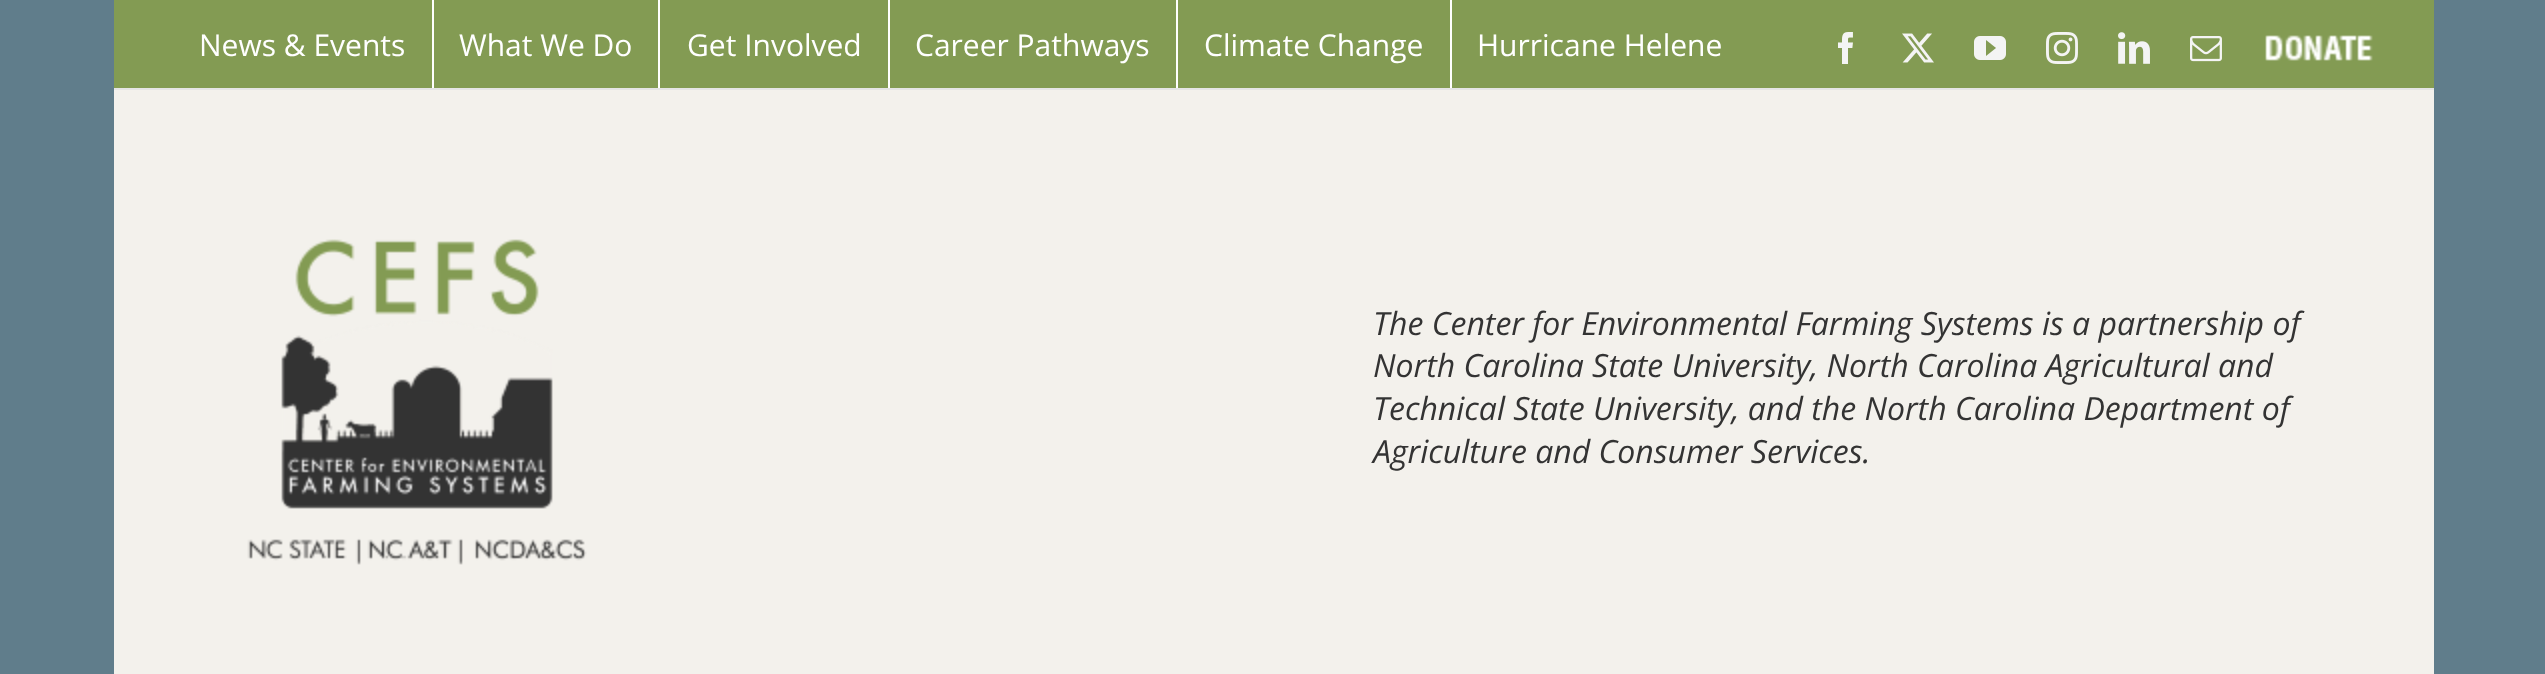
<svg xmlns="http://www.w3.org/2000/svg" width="2545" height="674">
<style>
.a{font:30px Open Sans;fill:#fff}
.b{font:italic 32px Open Sans;fill:#333}
</style>
<rect width="100%" height="100%" fill="#607d8b"/>
<path fill="#839b53" d="M114 0h2320v88H114z"/>
<path fill="#e5e5e5" d="M114 88h2320v2H114z"/>
<path fill="#fff" d="M432 0h2v88H432z"/>
<path fill="#fff" d="M658 0h2v88H658z"/>
<path fill="#fff" d="M888 0h2v88H888z"/>
<path fill="#fff" d="M1176 0h2v88H1176z"/>
<path fill="#fff" d="M1450 0h2v88H1450z"/>
<image href="1.png" x="1838" y="32" width="15" height="32"/>
<image href="2.png" x="1902" y="33" width="32" height="30"/>
<image href="3.png" x="1974" y="36" width="32" height="24"/>
<image href="4.png" x="2046" y="32" width="32" height="32"/>
<image href="5.png" x="2118" y="32" width="32" height="32"/>
<image href="6.png" x="2190" y="36" width="32" height="26"/>
<image href="7.png" x="2265" y="35" width="108" height="26"/>
<path fill="#f3f1ec" d="M114 90h2320v584H114z"/>
<image href="8.png" x="247" y="239" width="340" height="326"/>
<text class="a" x="199" y="56">News &amp; Events</text>
<text class="a" x="459" y="56">What We Do</text>
<text class="a" x="687" y="56">Get Involved</text>
<text class="a" x="915" y="56">Career Pathways</text>
<text class="a" x="1204" y="56">Climate Change</text>
<text class="a" x="1477" y="56">Hurricane Helene</text>
<text class="b" x="1373" y="335">The Center for Environmental Farming Systems is a partnership of</text>
<text class="b" x="1373" y="377">North Carolina State University, North Carolina Agricultural and</text>
<text class="b" x="1373" y="420">Technical State University, and the North Carolina Department of</text>
<text class="b" x="1373" y="463">Agriculture and Consumer Services.</text>
</svg>
